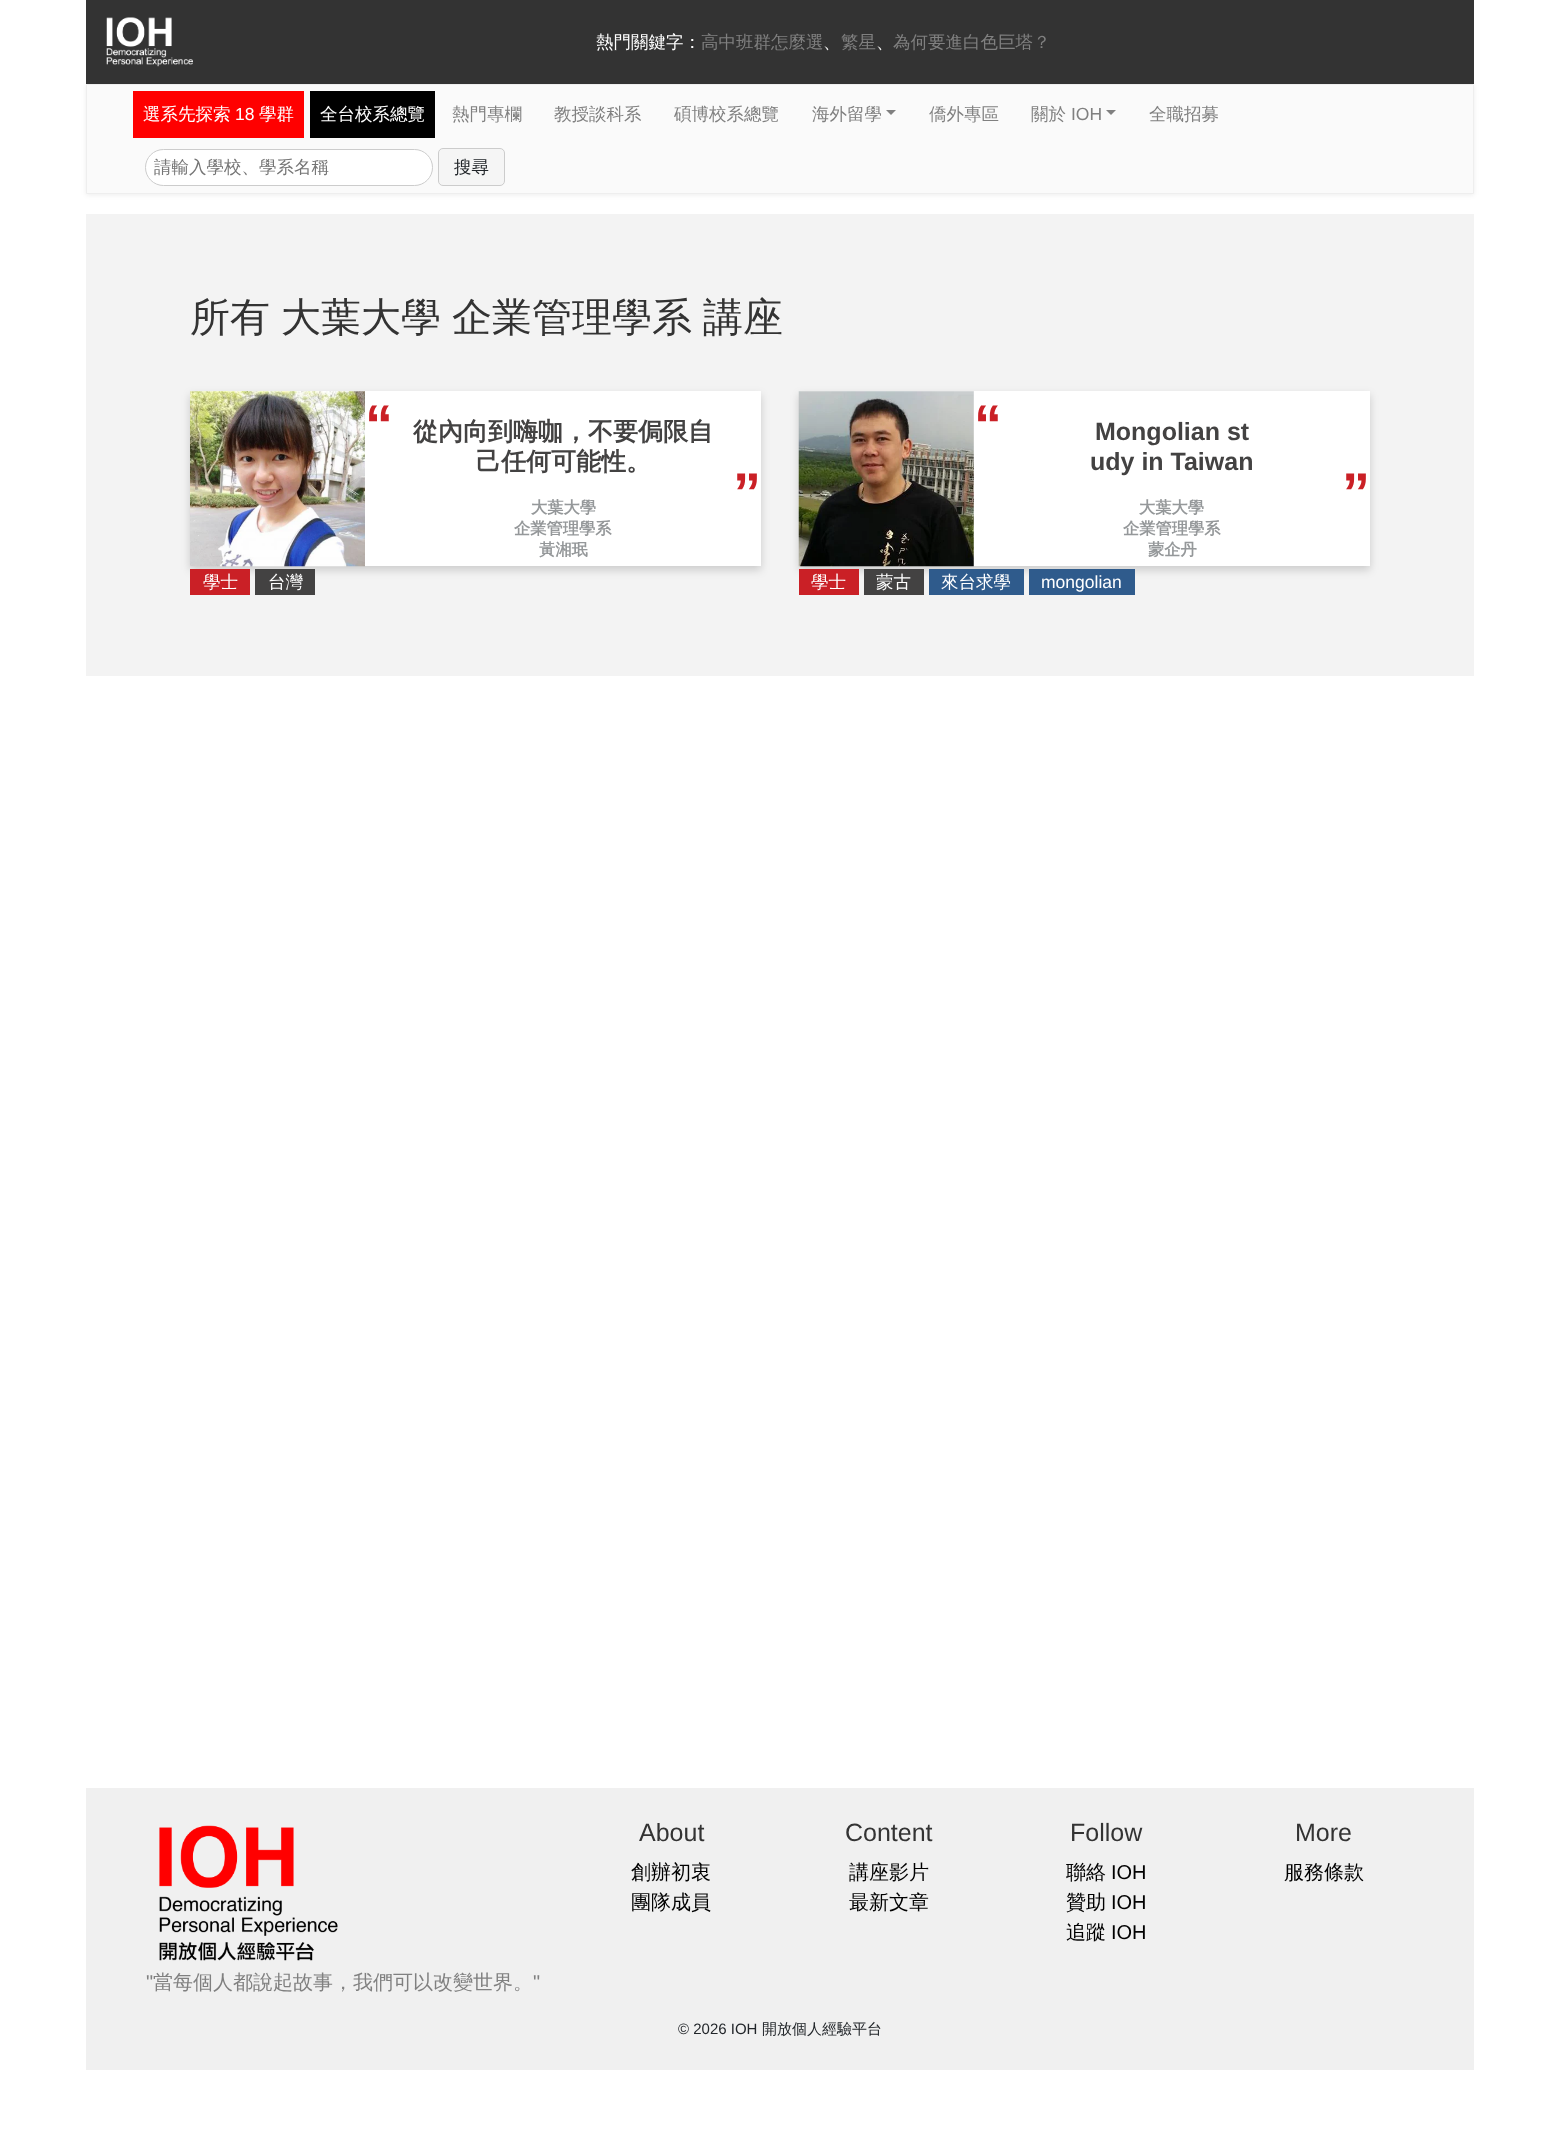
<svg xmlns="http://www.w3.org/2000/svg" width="1560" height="2132">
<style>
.a{font:500 17.5px WenQuanYi Zen Hei;fill:#fff}
.b{font:500 17.5px WenQuanYi Zen Hei;fill:#808080}
.c{font:500 17.5px WenQuanYi Zen Hei;fill:#eee}
.d{font:17.5px Liberation Sans;fill:#fff}
.e{font:17.5px Liberation Sans;fill:#808080}
.f{font:500 17.5px WenQuanYi Zen Hei;fill:#757575}
.g{font:500 17.5px WenQuanYi Zen Hei;fill:#212529}
.h{font:500 40px WenQuanYi Zen Hei;fill:#333}
.i{font:bold 56px Liberation Sans;fill:#ca2026}
.j{font:bold 25px WenQuanYi Zen Hei;fill:#434242}
.k{font:bold 16.25px WenQuanYi Zen Hei;fill:#95989a}
.l{font:bold 25px Liberation Sans;fill:#434242}
.m{font:25px Liberation Sans;fill:#333}
.n{font:500 20px WenQuanYi Zen Hei;fill:#000}
.o{font:20px Liberation Sans;fill:#000}
.p{font:20px Liberation Sans;fill:#808080}
.q{font:500 20px WenQuanYi Zen Hei;fill:#808080}
.r{font:15px Liberation Sans;fill:#212529}
.s{font:500 15px WenQuanYi Zen Hei;fill:#212529}
</style>
<rect width="100%" height="100%" fill="#fff"/>
<path fill="#00000012" filter="blur(2.5px)" d="M86 85h1388v110H86z"/>
<path fill="#333" d="M86 0h1388v84H86z"/>
<image href="1.png" x="106" y="17" width="87" height="50"/>
<path fill="#fafafa" stroke="#eee" d="M86.5 84.5h1387v109H86.5z"/>
<path fill="#f00" d="M133 91h171v47H133z"/>
<path fill="#000" d="M310 91h125v47H310z"/>
<path fill="#808080" d="M886 110h10l-5 5z"/>
<path fill="#808080" d="M1106 110h10l-5 5z"/>
<rect fill="#fff" stroke="#ccc" x="145.5" y="149.5" width="287" height="36" rx="18"/>
<rect fill="#f5f5f5" stroke="#ccc" x="438.5" y="148.5" width="66" height="37" rx="4.5"/>
<path fill="#f3f3f3" d="M86 214h1388v462H86z"/>
<path fill="#00000029" filter="blur(4px)" d="M190 395h571v175H190z"/>
<path fill="#fff" d="M190 391h571v175H190z"/>
<image href="2.png" x="190" y="391" width="175" height="176"/>
<path fill="#ca2026" d="M190 569h60v26H190z"/>
<path fill="#434242" d="M255 569h60v26H255z"/>
<path fill="#00000029" filter="blur(4px)" d="M799 395h571v175H799z"/>
<path fill="#fff" d="M974 391h396v175H974z"/>
<path fill="#f5f5f5" d="M799 391h175v175H799z"/>
<image href="3.png" x="798" y="391" width="176" height="176"/>
<path fill="#ca2026" d="M799 569h60v26H799z"/>
<path fill="#434242" d="M864 569h60v26H864z"/>
<path fill="#2f5b8c" d="M929 569h95v26H929z"/>
<path fill="#2f5b8c" d="M1029 569h106v26H1029z"/>
<path fill="#f0f0f0" d="M86 1788h1388v282H86z"/>
<image href="4.png" x="159" y="1825" width="179" height="136"/>
<text class="a" x="596" y="48">熱門關鍵字：</text>
<text class="b" x="701" y="48">高中班群怎麼選</text>
<text class="c" x="823" y="48">、</text>
<text class="b" x="841" y="48">繁星</text>
<text class="c" x="876" y="48">、</text>
<text class="b" x="893" y="48">為何要進白色巨塔？</text>
<text class="a" x="143" y="120">選系先探索</text>
<text class="d" x="235" y="120">18</text>
<text class="a" x="259" y="120">學群</text>
<text class="a" x="320" y="120">全台校系總覽</text>
<text class="b" x="452" y="120">熱門專欄</text>
<text class="b" x="554" y="120">教授談科系</text>
<text class="b" x="674" y="120">碩博校系總覽</text>
<text class="b" x="812" y="120">海外留學</text>
<text class="b" x="929" y="120">僑外專區</text>
<text class="b" x="1031" y="120">關於</text>
<text class="e" x="1071" y="120">IOH</text>
<text class="b" x="1149" y="120">全職招募</text>
<text class="f" x="154" y="173">請輸入學校、學系名稱</text>
<text class="g" x="454" y="173">搜尋</text>
<text class="h" x="190" y="331" word-spacing="-1">所有 大葉大學 企業管理學系 講座</text>
<text class="i" x="365" y="444">“</text>
<text class="j" x="413" y="440">從內向到嗨咖，不要侷限自</text>
<text class="j" x="476" y="470">己任何可能性。</text>
<text class="i" x="733" y="512">”</text>
<text class="k" x="531" y="513">大葉大學</text>
<text class="k" x="514" y="534">企業管理學系</text>
<text class="k" x="539" y="555">黃湘珉</text>
<text class="a" x="203" y="588">學士</text>
<text class="a" x="268" y="588">台灣</text>
<text class="i" x="974" y="444">“</text>
<text class="l" x="1095" y="440">Mongolian st</text>
<text class="l" x="1090" y="470">udy in Taiwan</text>
<text class="i" x="1342" y="512">”</text>
<text class="k" x="1139" y="513">大葉大學</text>
<text class="k" x="1123" y="534">企業管理學系</text>
<text class="k" x="1148" y="555">蒙企丹</text>
<text class="a" x="811" y="588">學士</text>
<text class="a" x="876" y="588">蒙古</text>
<text class="a" x="941" y="588">來台求學</text>
<text class="d" x="1041" y="588">mongolian</text>
<text class="m" x="639" y="1841">About</text>
<text class="n" x="631" y="1879">創辦初衷</text>
<text class="n" x="631" y="1909">團隊成員</text>
<text class="m" x="845" y="1841">Content</text>
<text class="n" x="849" y="1879">講座影片</text>
<text class="n" x="849" y="1909">最新文章</text>
<text class="m" x="1070" y="1841">Follow</text>
<text class="n" x="1066" y="1879">聯絡</text>
<text class="o" x="1111" y="1879">IOH</text>
<text class="n" x="1066" y="1909">贊助</text>
<text class="o" x="1111" y="1909">IOH</text>
<text class="n" x="1066" y="1939">追蹤</text>
<text class="o" x="1111" y="1939">IOH</text>
<text class="m" x="1295" y="1841">More</text>
<text class="n" x="1284" y="1879">服務條款</text>
<text class="p" x="146" y="1989">"</text>
<text class="q" x="153" y="1989">當每個人都說起故事，我們可以改變世界。</text>
<text class="p" x="533" y="1989">"</text>
<text class="r" x="678" y="2034">© 2026 IOH</text>
<text class="s" x="762" y="2034">開放個人經驗平台</text>
</svg>
